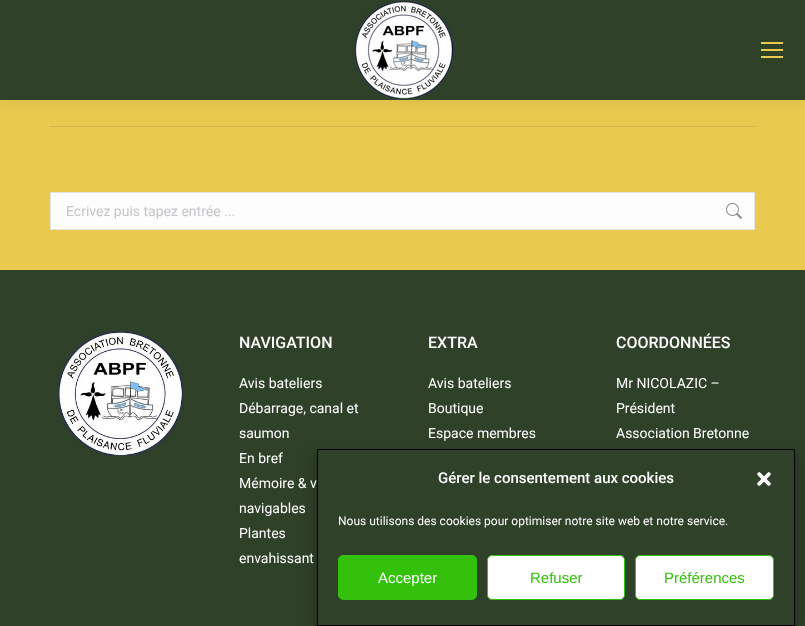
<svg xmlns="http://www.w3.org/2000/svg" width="805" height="626">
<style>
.a{font:14px Roboto;fill:#c4c5c9}
.b{font:500 16px Roboto;fill:#fff}
.c{font:14px Roboto;fill:#fff}
.d{font:500 15px Roboto;fill:#fff}
.e{font:12px Roboto;fill:#fff}
.f{font:15px Liberation Sans;fill:#fff}
.g{font:15px Liberation Sans;fill:#33c10b}
</style>
<rect width="100%" height="100%" fill="#eac94f"/>
<path fill="#00000012" filter="blur(7.5px)" d="M-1 -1h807v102H-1z"/>
<path fill="#2f4129" d="M0 0h805v100H0z"/>
<image href="1.png" x="354" y="0" width="99" height="100"/>
<path fill="#eac94f" d="M761 42h22v2H761z"/>
<path fill="#eac94f" d="M761 49h22v2H761z"/>
<path fill="#eac94f" d="M761 56h22v2H761z"/>
<path fill="#d4b74c" d="M50 126h705v1H50z"/>
<rect fill="#fdfdfd" x="50" y="192" width="705" height="38" rx="1"/>
<path fill="none" stroke="#3333331f" d="M50.5 192.5h704v37H50.5z"/>
<image href="2.png" x="726" y="203" width="16" height="16"/>
<path fill="#2f4129" d="M0 270h805v356H0z"/>
<image href="3.png" x="56" y="330" width="128" height="126"/>
<path fill="#0000003b" filter="blur(3px)" d="M317 455h478v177H317z"/>
<path fill="#00000030" filter="blur(10px)" d="M317 459h478v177H317z"/>
<path fill="#2f4129" stroke="#000" d="M317.5 449.5h477v176H317.5z"/>
<image href="4.png" x="757" y="472" width="14" height="14"/>
<rect fill="#33c10b" stroke="#33c10b" x="338.5" y="555.5" width="138" height="44" rx="4.5"/>
<rect fill="#fff" stroke="#33c10b" x="487.5" y="555.5" width="137" height="44" rx="4.5"/>
<rect fill="#fff" stroke="#33c10b" x="635.5" y="555.5" width="138" height="44" rx="4.5"/>
<text class="a" x="66" y="216">Ecrivez puis tapez entrée ...</text>
<text class="b" x="239" y="348">NAVIGATION</text>
<text class="c" x="239" y="388">Avis bateliers</text>
<text class="c" x="239" y="413">Débarrage, canal et</text>
<text class="c" x="239" y="438">saumon</text>
<text class="c" x="239" y="463">En bref</text>
<text class="c" x="239" y="488">Mémoire &amp; v</text>
<text class="c" x="239" y="513">navigables</text>
<text class="c" x="239" y="538">Plantes</text>
<text class="c" x="239" y="563">envahissant</text>
<text class="b" x="428" y="348">EXTRA</text>
<text class="c" x="428" y="388">Avis bateliers</text>
<text class="c" x="428" y="413">Boutique</text>
<text class="c" x="428" y="438">Espace membres</text>
<text class="b" x="616" y="348">COORDONNÉES</text>
<text class="c" x="616" y="388">Mr NICOLAZIC –</text>
<text class="c" x="616" y="413">Président</text>
<text class="c" x="616" y="438">Association Bretonne</text>
<text class="d" x="438" y="483">Gérer le consentement aux cookies</text>
<text class="e" x="338" y="525">Nous utilisons des cookies pour optimiser notre site web et notre service.</text>
<text class="f" x="378" y="583">Accepter</text>
<text class="g" x="530" y="583">Refuser</text>
<text class="g" x="664" y="583">Préférences</text>
</svg>
